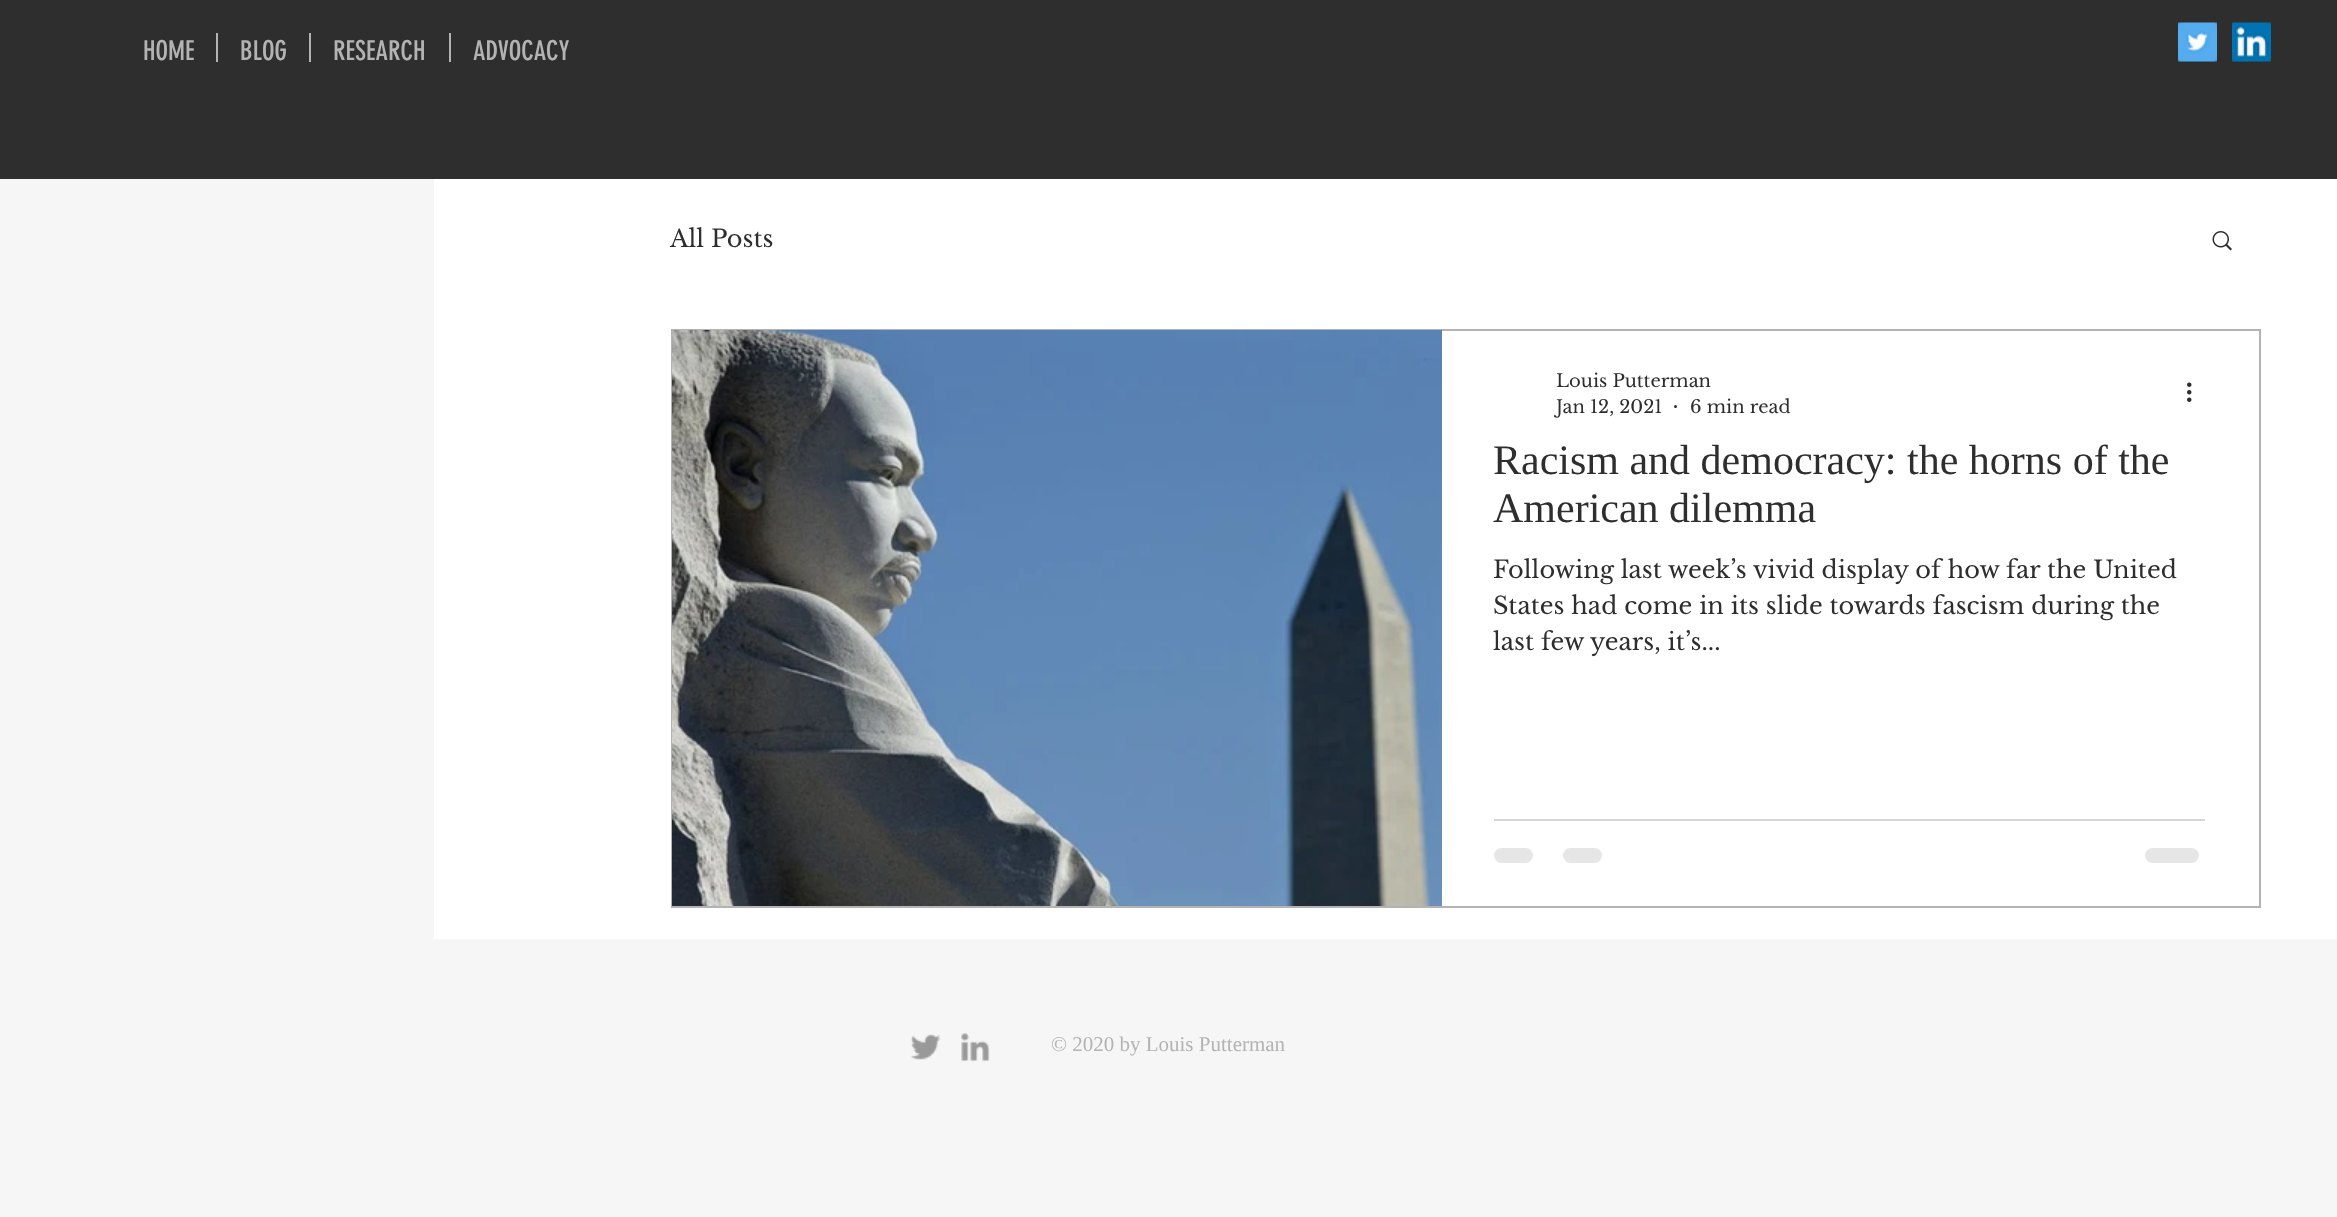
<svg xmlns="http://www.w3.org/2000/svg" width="2337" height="1217">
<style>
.a{font:27px 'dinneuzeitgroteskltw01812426';fill:#b3b3b3}
.b{font:24px Libre Baskerville;fill:#2f2e2e}
.c{font:18px Libre Baskerville;fill:#2f2e2e}
.d{font:42px Liberation Serif;fill:#2f2e2e}
.e{font:21px Liberation Serif;fill:#b3b3b3}
</style>
<rect width="100%" height="100%" fill="#f6f6f6"/>
<path fill="#2f2e2e" d="M0 0h2337v179H0z"/>
<path fill="#b3b3b3" d="M216 33h2v29H216z"/>
<path fill="#b3b3b3" d="M309 33h2v29H309z"/>
<path fill="#b3b3b3" d="M449 33h2v29H449z"/>
<image href="1.png" x="2178" y="22" width="39" height="40"/>
<image href="2.png" x="2232" y="22" width="39" height="40"/>
<path fill="#fff" d="M434 179h1903v760H434z"/>
<image href="3.png" x="2212" y="231" width="20" height="20"/>
<path fill="none" stroke="#b3b3b3" stroke-width="2" d="M672 330h1588v577H672z"/>
<image href="4.png" x="672" y="330" width="770" height="576"/>
<circle fill="#2f2e2e" cx="1675.5" cy="406.5" r="1.5"/>
<image href="5.png" x="2187" y="382" width="5" height="20"/>
<path fill="#d5d5d5" d="M1494 819h711v2H1494z"/>
<rect fill="#e6e6e6" x="1494" y="848" width="39" height="15" rx="7.5"/>
<rect fill="#e6e6e6" x="1563" y="848" width="39" height="15" rx="7.5"/>
<rect fill="#e6e6e6" x="2145" y="848" width="54" height="15" rx="7.5"/>
<image href="6.png" x="910" y="1034" width="31" height="26"/>
<image href="7.png" x="961" y="1033" width="29" height="29"/>
<text class="a" x="143" y="60">HOME</text>
<text class="a" x="240" y="60">BLOG</text>
<text class="a" x="333" y="60">RESEARCH</text>
<text class="a" x="473" y="60">ADVOCACY</text>
<text class="b" x="670" y="247">All Posts</text>
<text class="c" x="1556" y="387">Louis Putterman</text>
<text class="c" x="1556" y="413">Jan 12, 2021</text>
<text class="c" x="1690" y="413">6 min read</text>
<text class="d" x="1493" y="474">Racism and democracy: the horns of the</text>
<text class="d" x="1493" y="522">American dilemma</text>
<text class="b" x="1493" y="578">Following last week’s vivid display of how far the United</text>
<text class="b" x="1493" y="614">States had come in its slide towards fascism during the</text>
<text class="b" x="1493" y="650">last few years, it’s...</text>
<text class="e" x="1051" y="1051">© 2020 by Louis Putterman</text>
</svg>
